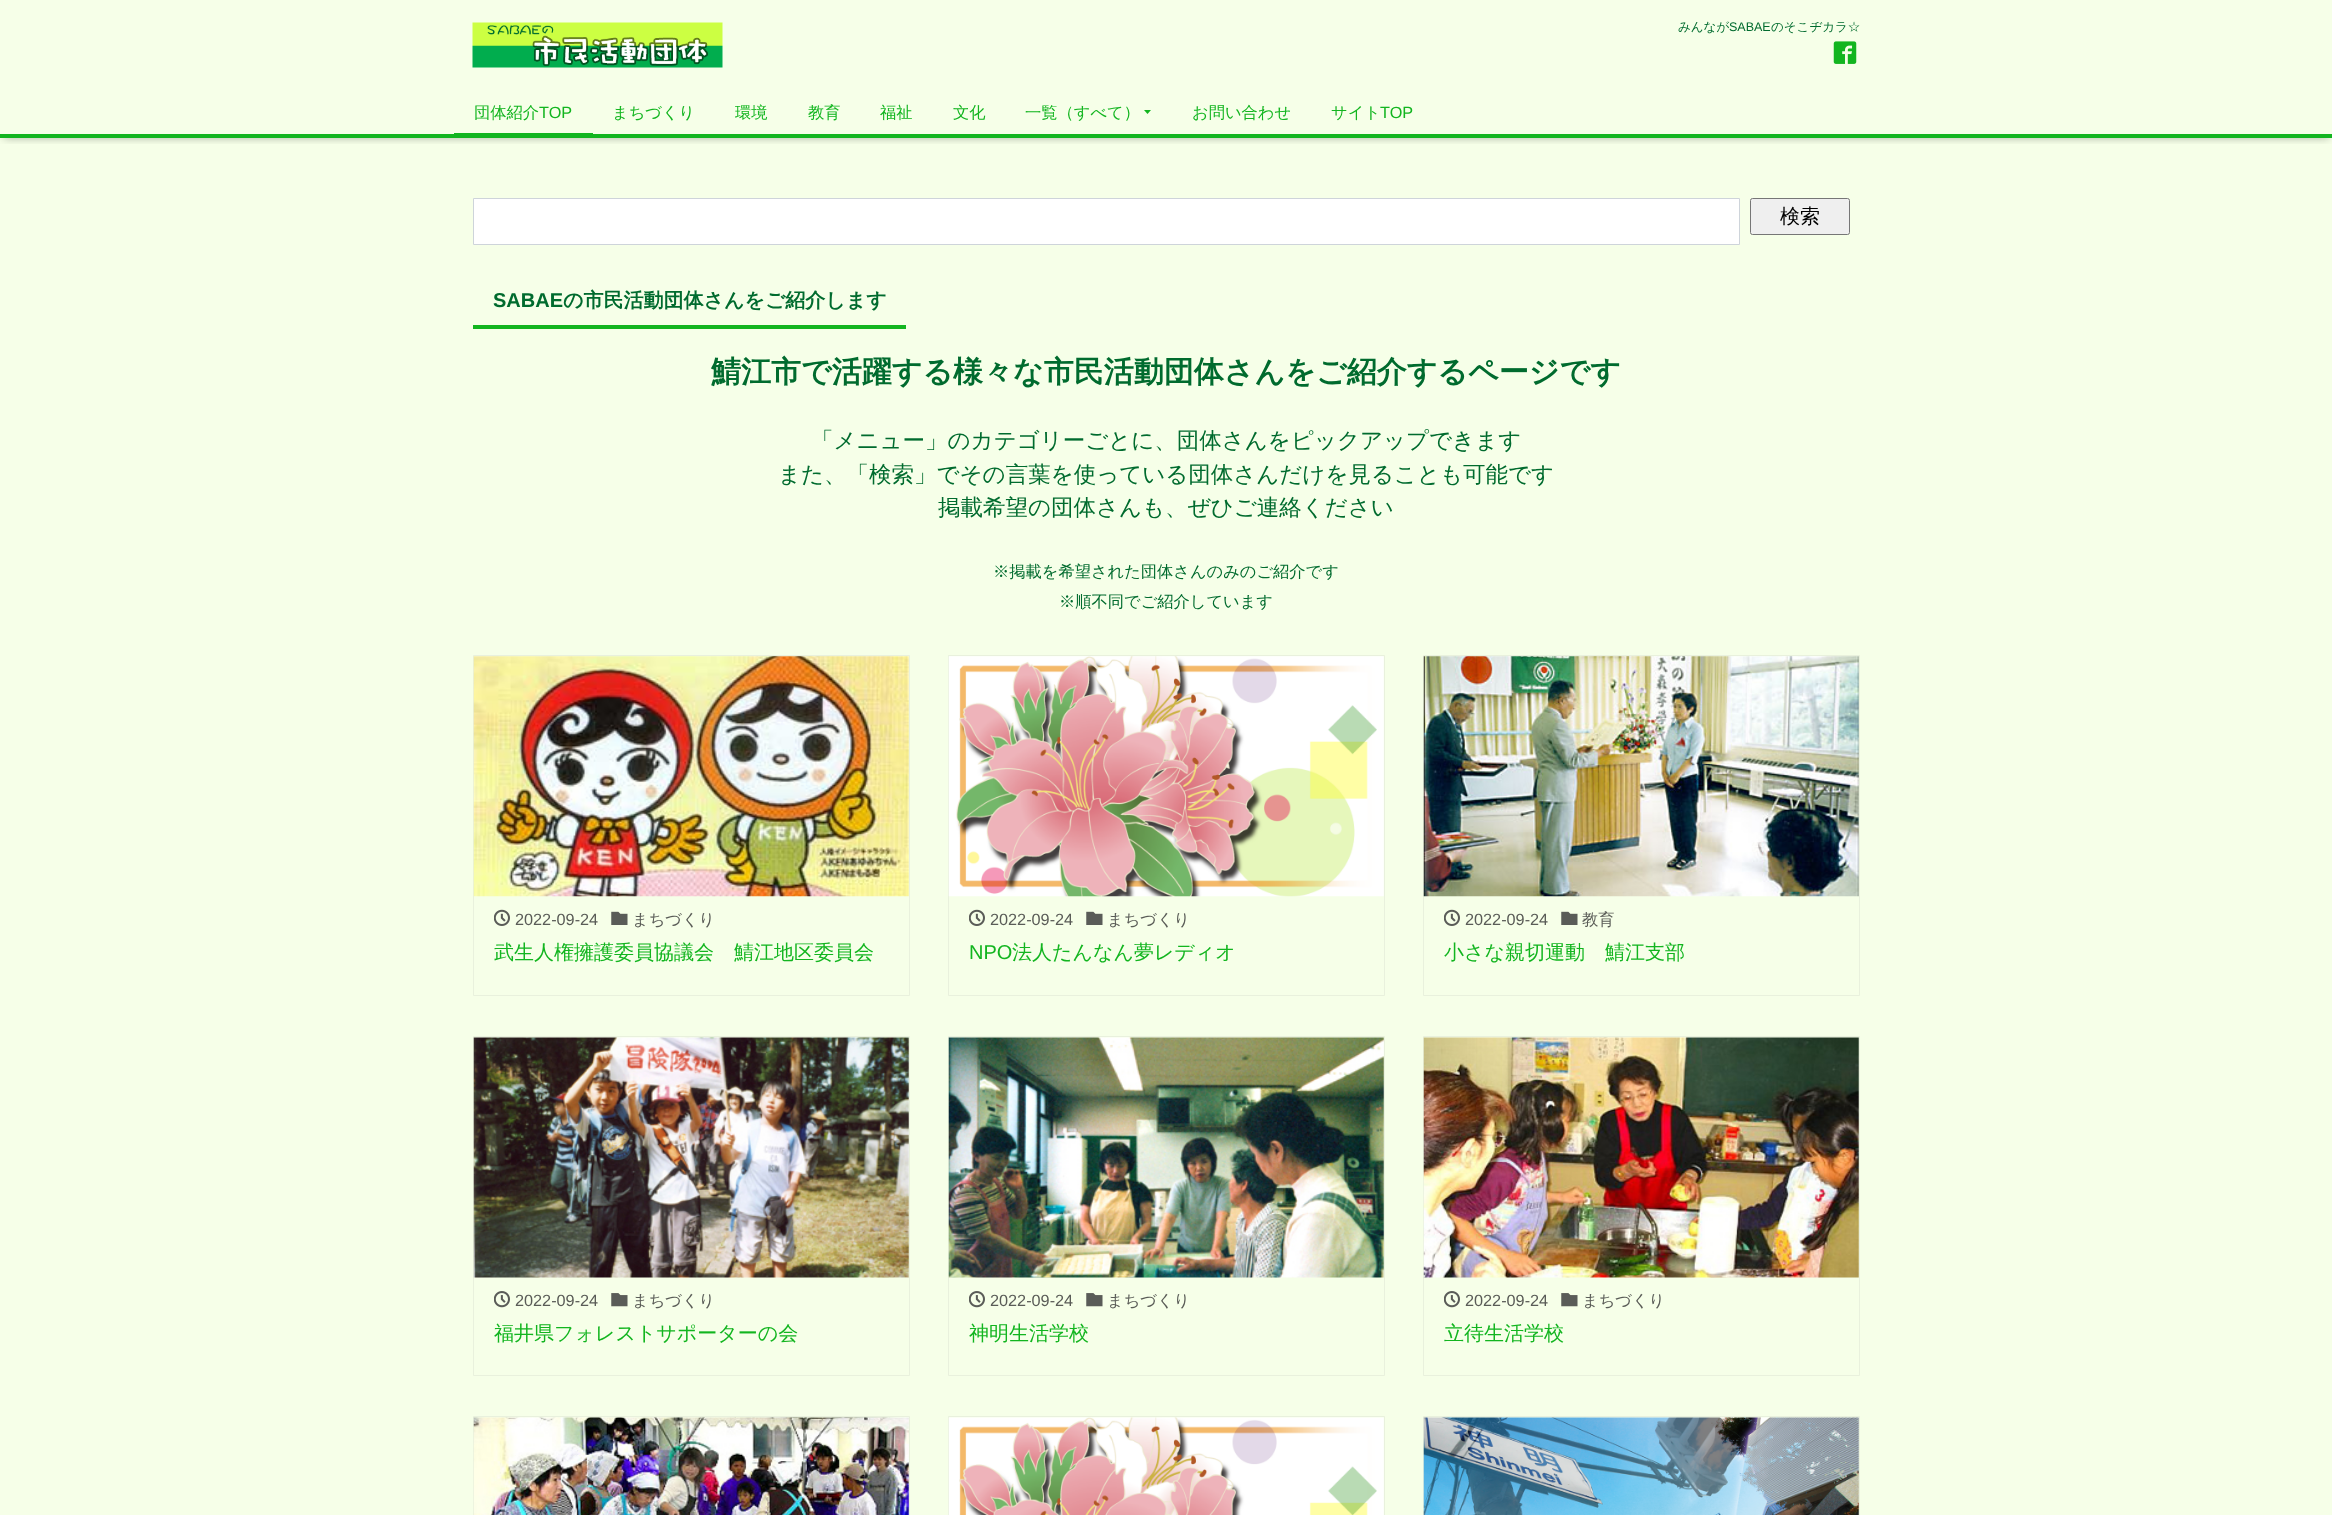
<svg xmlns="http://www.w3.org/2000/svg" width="2332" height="1515">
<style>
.a{font:500 12.5px WenQuanYi Zen Hei;fill:#006b2e}
.b{font:12.5px Liberation Sans;fill:#006b2e}
.c{font:500 16.25px WenQuanYi Zen Hei;fill:#12b51f}
.d{font:16.25px Liberation Sans;fill:#12b51f}
.e{font:500 20px WenQuanYi Zen Hei;fill:#000}
.f{font:bold 20px Liberation Sans;fill:#006b2e}
.g{font:bold 20px WenQuanYi Zen Hei;fill:#006b2e}
.h{font:bold 30px WenQuanYi Zen Hei;fill:#006b2e}
.i{font:500 22.5px WenQuanYi Zen Hei;fill:#006b2e}
.j{font:500 16.25px WenQuanYi Zen Hei;fill:#006b2e}
.k{font:16.25px Liberation Sans;fill:#5a5c57}
.l{font:500 16.25px WenQuanYi Zen Hei;fill:#5a5c57}
.m{font:500 20px WenQuanYi Zen Hei;fill:#12b51f}
.n{font:20px Liberation Sans;fill:#12b51f}
</style>
<defs>
<clipPath id="clip1"><path d="M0 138h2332v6H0z"/></clipPath>
</defs>
<rect width="100%" height="100%" fill="#f6ffe8"/>
<image href="1.png" x="472" y="22" width="251" height="46"/>
<image href="2.png" x="1833" y="41" width="24" height="23"/>
<g clip-path="url(#clip1)">
<path fill="#0000004d" filter="blur(4px)" d="M4 100h2325v38H4z"/>
</g>
<path fill="#12b51f" d="M0 134h2332v4H0z"/>
<path fill="#12b51f" d="M454 133h139v1H454z"/>
<path fill="#12b51f" d="M1144 110h7l-3.5 4z"/>
<path fill="#fff" stroke="#ced4da" d="M473.5 198.5h1266v46H473.5z"/>
<rect fill="#efefef" stroke="#767676" x="1750.5" y="198.5" width="99" height="36" rx="2"/>
<path fill="#12b51f" d="M473 325h433v4H473z"/>
<path fill="none" stroke="#e9f1dd" d="M473.5 655.5h436v340H473.5z"/>
<image href="3.png" x="473" y="656" width="436" height="241"/>
<image href="4.png" x="494" y="909" width="16" height="17"/>
<image href="5.png" x="611" y="911" width="17" height="14"/>
<path fill="none" stroke="#e9f1dd" d="M948.5 655.5h436v340H948.5z"/>
<image href="6.png" x="948" y="656" width="436" height="241"/>
<image href="4.png" x="969" y="909" width="16" height="17"/>
<image href="5.png" x="1086" y="911" width="17" height="14"/>
<path fill="none" stroke="#e9f1dd" d="M1423.5 655.5h436v340H1423.5z"/>
<image href="7.png" x="1423" y="656" width="436" height="241"/>
<image href="4.png" x="1444" y="909" width="16" height="17"/>
<image href="5.png" x="1561" y="911" width="17" height="14"/>
<path fill="none" stroke="#e9f1dd" d="M473.5 1036.5h436v339H473.5z"/>
<image href="8.png" x="473" y="1037" width="436" height="241"/>
<image href="9.png" x="494" y="1291" width="16" height="17"/>
<image href="10.png" x="611" y="1293" width="17" height="14"/>
<path fill="none" stroke="#e9f1dd" d="M948.5 1036.5h436v339H948.5z"/>
<image href="11.png" x="948" y="1037" width="436" height="241"/>
<image href="9.png" x="969" y="1291" width="16" height="17"/>
<image href="10.png" x="1086" y="1293" width="17" height="14"/>
<path fill="none" stroke="#e9f1dd" d="M1423.5 1036.5h436v339H1423.5z"/>
<image href="12.png" x="1423" y="1037" width="436" height="241"/>
<image href="9.png" x="1444" y="1291" width="16" height="17"/>
<image href="10.png" x="1561" y="1293" width="17" height="14"/>
<path fill="none" stroke="#e9f1dd" d="M473.5 1416.5h436v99H473.5z"/>
<image href="13.png" x="473" y="1417" width="436" height="98"/>
<path fill="none" stroke="#e9f1dd" d="M948.5 1416.5h436v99H948.5z"/>
<image href="14.png" x="948" y="1417" width="436" height="98"/>
<path fill="none" stroke="#e9f1dd" d="M1423.5 1416.5h436v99H1423.5z"/>
<image href="15.png" x="1423" y="1417" width="436" height="98"/>
<text class="a" x="1678" y="31">みんなが</text>
<text class="b" x="1729" y="31">SABAE</text>
<text class="a" x="1771" y="31">のそこヂカラ☆</text>
<text class="c" x="474" y="118">団体紹介</text>
<text class="d" x="539" y="118">TOP</text>
<text class="c" x="612" y="118">まちづくり</text>
<text class="c" x="735" y="118">環境</text>
<text class="c" x="808" y="118">教育</text>
<text class="c" x="880" y="118">福祉</text>
<text class="c" x="953" y="118">文化</text>
<text class="c" x="1025" y="118">一覧（すべて）</text>
<text class="c" x="1192" y="118">お問い合わせ</text>
<text class="c" x="1331" y="118">サイト</text>
<text class="d" x="1380" y="118">TOP</text>
<text class="e" x="1780" y="223">検索</text>
<text class="f" x="493" y="307">SABAE</text>
<text class="g" x="563" y="307">の市民活動団体さんをご紹介します</text>
<text class="h" x="711" y="382">鯖江市で活躍する様々な市民活動団体さんをご紹介するページです</text>
<text class="i" x="811" y="448">「メニュー」のカテゴリーごとに、団体さんをピックアップできます</text>
<text class="i" x="778" y="482">また、「検索」でその言葉を使っている団体さんだけを見ることも可能です</text>
<text class="i" x="938" y="515">掲載希望の団体さんも、ぜひご連絡ください</text>
<text class="j" x="993" y="577">※掲載を希望された団体さんのみのご紹介です</text>
<text class="j" x="1059" y="607">※順不同でご紹介しています</text>
<text class="k" x="515" y="925">2022-09-24</text>
<text class="l" x="632" y="925">まちづくり</text>
<text class="m" x="494" y="959">武生人権擁護委員協議会　鯖江地区委員会</text>
<text class="k" x="990" y="925">2022-09-24</text>
<text class="l" x="1107" y="925">まちづくり</text>
<text class="n" x="969" y="959">NPO</text>
<text class="m" x="1012" y="959">法人たんなん夢レディオ</text>
<text class="k" x="1465" y="925">2022-09-24</text>
<text class="l" x="1582" y="925">教育</text>
<text class="m" x="1444" y="959">小さな親切運動　鯖江支部</text>
<text class="k" x="515" y="1306">2022-09-24</text>
<text class="l" x="632" y="1306">まちづくり</text>
<text class="m" x="494" y="1340">福井県フォレストサポーターの会</text>
<text class="k" x="990" y="1306">2022-09-24</text>
<text class="l" x="1107" y="1306">まちづくり</text>
<text class="m" x="969" y="1340">神明生活学校</text>
<text class="k" x="1465" y="1306">2022-09-24</text>
<text class="l" x="1582" y="1306">まちづくり</text>
<text class="m" x="1444" y="1340">立待生活学校</text>
</svg>
